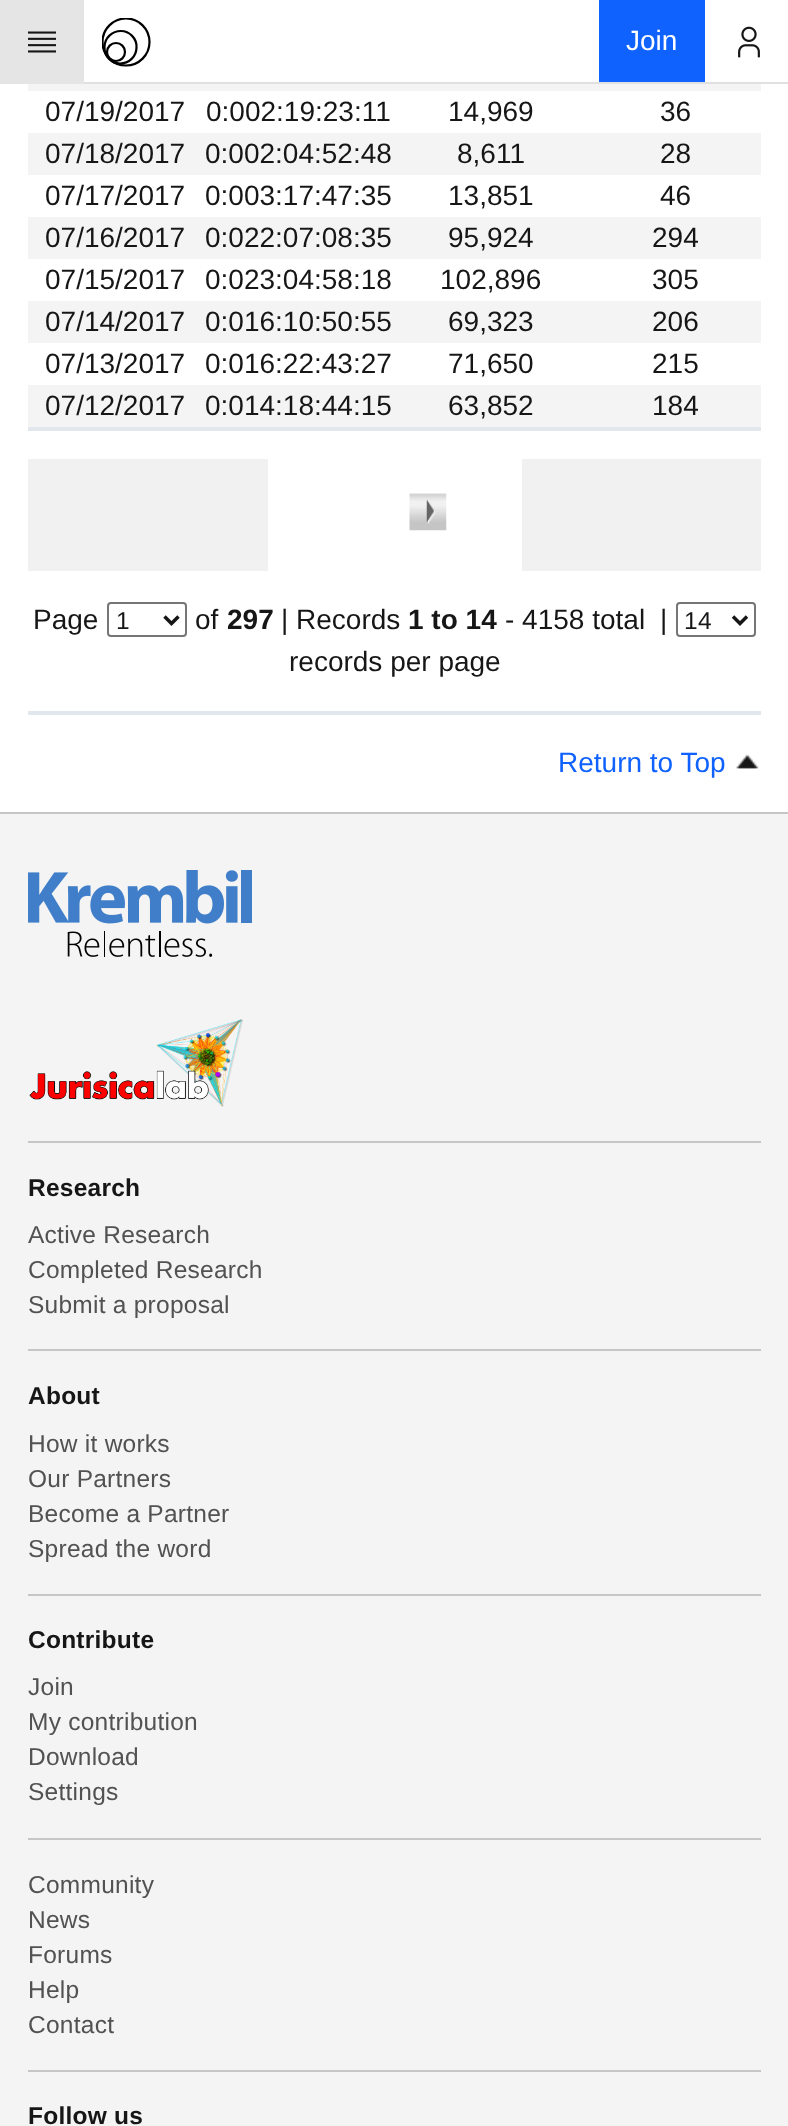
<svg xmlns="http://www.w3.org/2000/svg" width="788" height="2126">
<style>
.a{font:28px Liberation Sans;fill:#fff}
.b{font:28px Liberation Sans;fill:#161616}
.c{font:24.5px Liberation Sans;letter-spacing:0.25px;fill:#161616}
.d{font:bold 28px Liberation Sans;fill:#161616}
.e{font:28px Liberation Sans;fill:#0f62fe}
.f{font:bold 24.5px Liberation Sans;letter-spacing:0.25px;fill:#161616}
.g{font:24.5px Liberation Sans;letter-spacing:0.25px;fill:#525252}
</style>
<defs>
<clipPath id="clip1"><path d="M102 18h49v49H102z"/></clipPath>
</defs>
<rect width="100%" height="100%" fill="#fff"/>
<path fill="#e0e0e0" d="M84 82h704v2H84z"/>
<path fill="#e5e5e5" d="M0 0h84v84H0z"/>
<image href="1.png" x="28" y="31" width="28" height="22"/>
<g clip-path="url(#clip1)">
<circle fill="none" stroke="#000" stroke-width="2.2" cx="126" cy="42" r="23.5"/>
</g>
<path fill="none" stroke="#000" stroke-width="2.2" d="M121 31c8.5 0 16 7.5 15.5 16.5c0 9-7.5 16-16.5 16c-8.5 0-16-7.5-15.5-16.5c0-9 7.5-16 16.5-16z"/>
<circle fill="none" stroke="#000" stroke-width="2.2" cx="116" cy="52" r="9"/>
<path fill="#0f62fe" d="M599 0h106v82H599z"/>
<image href="2.png" x="738" y="26" width="22" height="32"/>
<path fill="#f4f4f4" d="M28 84h733v7H28z"/>
<path fill="#f4f4f4" d="M28 133h733v42H28z"/>
<path fill="#f4f4f4" d="M28 217h733v42H28z"/>
<path fill="#f4f4f4" d="M28 301h733v42H28z"/>
<path fill="#f4f4f4" d="M28 385h733v42H28z"/>
<path fill="#e1e7ed" d="M28 427h733v4H28z"/>
<path fill="#f1f1f1" d="M28 459h240v112H28z"/>
<image href="3.png" x="409" y="493" width="38" height="38"/>
<path fill="#f1f1f1" d="M522 459h239v112H522z"/>
<rect fill="none" stroke="#767676" stroke-width="2" x="108" y="603" width="78" height="33" rx="3"/>
<path fill="none" stroke="#161616" stroke-width="3.5" d="M164.5 616.5l7 7l7-7"/>
<rect fill="none" stroke="#767676" stroke-width="2" x="677" y="603" width="78" height="33" rx="3"/>
<path fill="none" stroke="#161616" stroke-width="3.5" d="M733 616.5l7 7l7-7"/>
<path fill="#e1e7ed" d="M28 711h733v4H28z"/>
<image href="4.png" x="736" y="754" width="23" height="15"/>
<path fill="#f4f4f4" d="M0 814h788v1312H0z"/>
<path fill="#c6c6c6" d="M0 812h788v2H0z"/>
<image href="5.png" x="28" y="870" width="224" height="87"/>
<path fill="#c6c6c6" d="M28 1141h733v2H28z"/>
<image href="6.png" x="29" y="1019" width="214" height="88"/>
<path fill="#c6c6c6" d="M28 1349h733v2H28z"/>
<path fill="#c6c6c6" d="M28 1594h733v2H28z"/>
<path fill="#c6c6c6" d="M28 1838h733v2H28z"/>
<path fill="#c6c6c6" d="M28 2070h733v2H28z"/>
<text class="a" x="626" y="50">Join</text>
<text class="b" x="45" y="121">07/19/2017</text>
<text class="b" x="206" y="121">0:002:19:23:11</text>
<text class="b" x="448" y="121">14,969</text>
<text class="b" x="660" y="121">36</text>
<text class="b" x="45" y="163">07/18/2017</text>
<text class="b" x="205" y="163">0:002:04:52:48</text>
<text class="b" x="457" y="163">8,611</text>
<text class="b" x="660" y="163">28</text>
<text class="b" x="45" y="205">07/17/2017</text>
<text class="b" x="205" y="205">0:003:17:47:35</text>
<text class="b" x="448" y="205">13,851</text>
<text class="b" x="660" y="205">46</text>
<text class="b" x="45" y="247">07/16/2017</text>
<text class="b" x="205" y="247">0:022:07:08:35</text>
<text class="b" x="448" y="247">95,924</text>
<text class="b" x="652" y="247">294</text>
<text class="b" x="45" y="289">07/15/2017</text>
<text class="b" x="205" y="289">0:023:04:58:18</text>
<text class="b" x="440" y="289">102,896</text>
<text class="b" x="652" y="289">305</text>
<text class="b" x="45" y="331">07/14/2017</text>
<text class="b" x="205" y="331">0:016:10:50:55</text>
<text class="b" x="448" y="331">69,323</text>
<text class="b" x="652" y="331">206</text>
<text class="b" x="45" y="373">07/13/2017</text>
<text class="b" x="205" y="373">0:016:22:43:27</text>
<text class="b" x="448" y="373">71,650</text>
<text class="b" x="652" y="373">215</text>
<text class="b" x="45" y="415">07/12/2017</text>
<text class="b" x="205" y="415">0:014:18:44:15</text>
<text class="b" x="448" y="415">63,852</text>
<text class="b" x="652" y="415">184</text>
<text class="b" x="33" y="629">Page</text>
<text class="c" x="116" y="629">1</text>
<text class="b" x="195" y="629">of</text>
<text class="d" x="227" y="629">297</text>
<text class="b" x="281" y="629">| Records</text>
<text class="d" x="408" y="629">1 to 14</text>
<text class="b" x="505" y="629">- 4158 total</text>
<text class="b" x="660" y="629">|</text>
<text class="c" x="684" y="629">14</text>
<text class="b" x="289" y="671">records per page</text>
<text class="e" x="558" y="772">Return to Top</text>
<text class="f" x="28" y="1196">Research</text>
<text class="g" x="28" y="1243">Active Research</text>
<text class="g" x="28" y="1278">Completed Research</text>
<text class="g" x="28" y="1313">Submit a proposal</text>
<text class="f" x="28" y="1404">About</text>
<text class="g" x="28" y="1452">How it works</text>
<text class="g" x="28" y="1487">Our Partners</text>
<text class="g" x="28" y="1522">Become a Partner</text>
<text class="g" x="28" y="1557">Spread the word</text>
<text class="f" x="28" y="1648">Contribute</text>
<text class="g" x="28" y="1695">Join</text>
<text class="g" x="28" y="1730">My contribution</text>
<text class="g" x="28" y="1765">Download</text>
<text class="g" x="28" y="1800">Settings</text>
<text class="g" x="28" y="1893">Community</text>
<text class="g" x="28" y="1928">News</text>
<text class="g" x="28" y="1963">Forums</text>
<text class="g" x="28" y="1998">Help</text>
<text class="g" x="28" y="2033">Contact</text>
<text class="f" x="28" y="2124">Follow us</text>
</svg>
